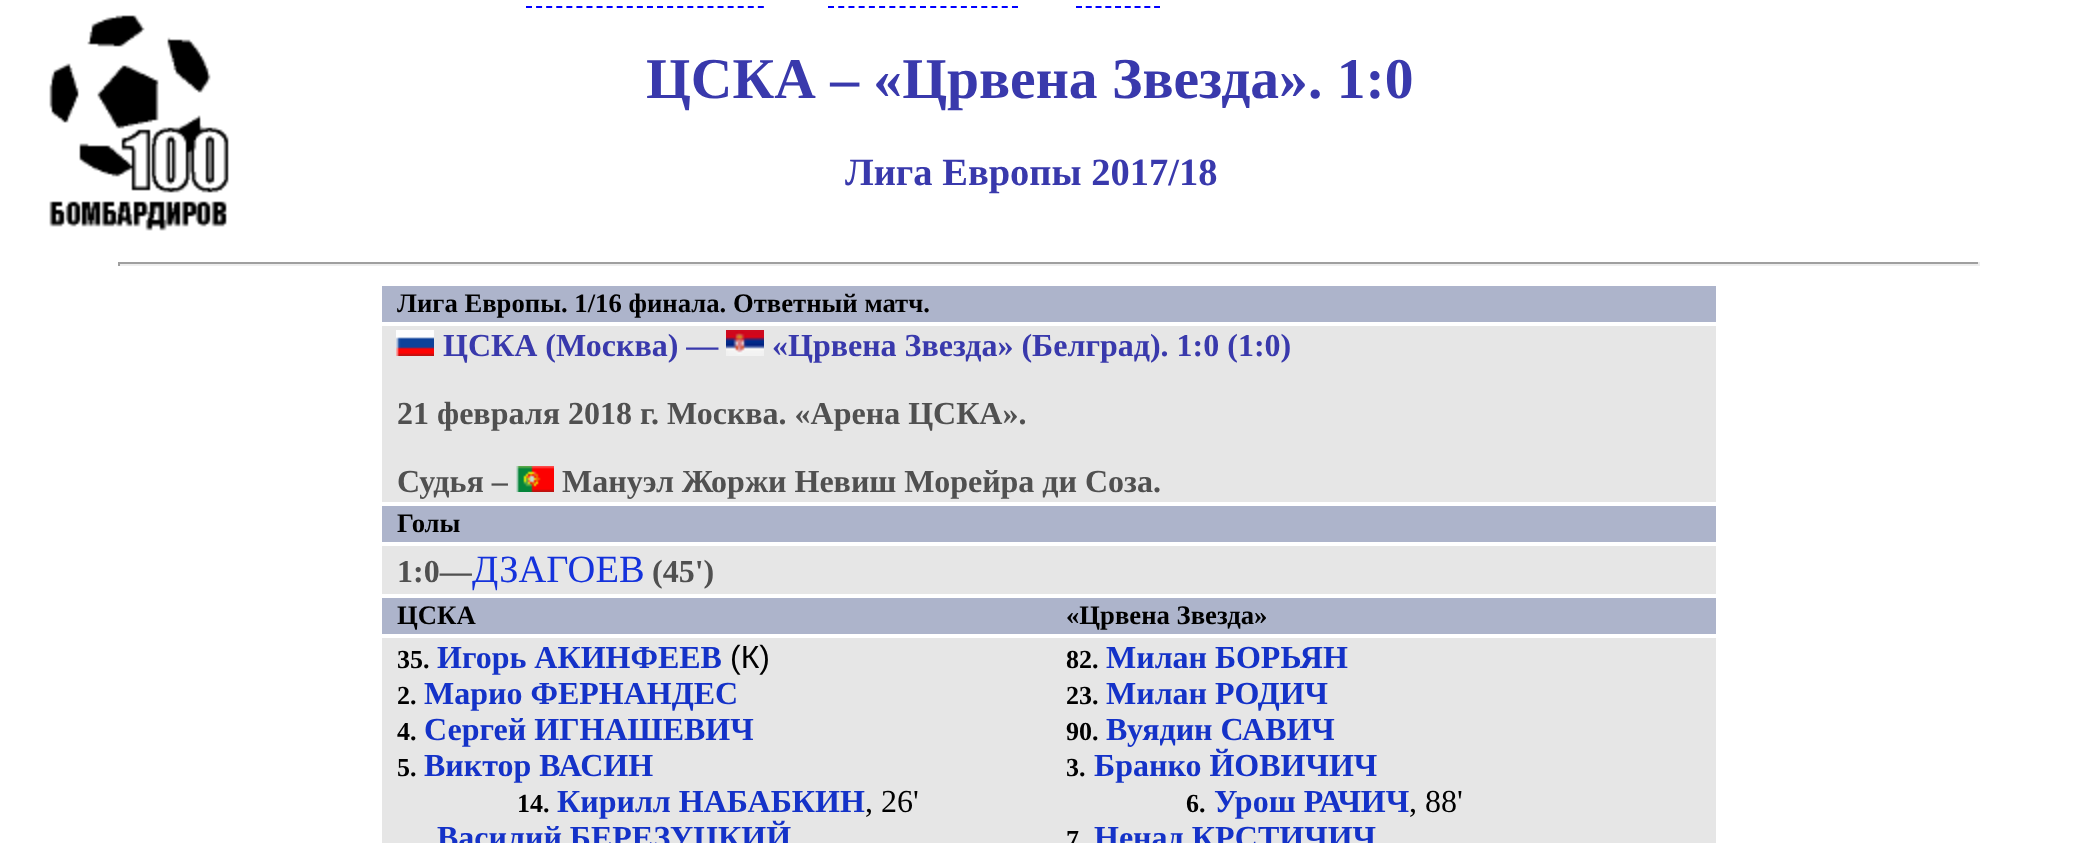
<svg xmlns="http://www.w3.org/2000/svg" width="2098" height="843">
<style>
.a{font:bold 57.6px Liberation Serif;fill:#3939ac}
.b{font:bold 38.5px Liberation Serif;fill:#3939ac}
.c{font:bold 26.7px Liberation Serif;fill:#000}
.d{font:bold 32px Liberation Serif;fill:#3939ac}
.e{font:bold 32px Liberation Serif;fill:#505050}
.f{font:38.5px Liberation Serif;fill:#1432dc}
.g{font:bold 26px Liberation Serif;fill:#000}
.h{font:bold 32px Liberation Serif;fill:#1432c8}
.i{font:32px Liberation Sans;fill:#000}
.j{font:32px Liberation Serif;fill:#000}
</style>
<rect width="100%" height="100%" fill="#fff"/>
<image href="1.png" x="49" y="15" width="180" height="216"/>
<path fill="none" stroke="#00f" stroke-width="2" stroke-dasharray="6 4.08" d="M526 7h238"/>
<path fill="none" stroke="#00f" stroke-width="2" stroke-dasharray="6 4.22" d="M828 7h190"/>
<path fill="none" stroke="#00f" stroke-width="2" stroke-dasharray="6 3.76" d="M1076 7h84"/>
<path fill="#9f9f9f" d="M118 262h1862v2H118z"/>
<path fill="#eee" d="M1978 262h2v4H1978z"/>
<path fill="#eee" d="M118 264h1862v2H118z"/>
<path fill="#9f9f9f" d="M118 262h2v4H118z"/>
<path fill="#adb4cb" d="M382 286h1334v36H382z"/>
<path fill="#e6e6e6" d="M382 326h1334v176H382z"/>
<image href="2.png" x="396" y="330" width="38" height="26"/>
<image href="3.png" x="726" y="330" width="38" height="26"/>
<image href="4.png" x="516" y="466" width="38" height="26"/>
<path fill="#adb4cb" d="M382 506h1334v36H382z"/>
<path fill="#e6e6e6" d="M382 546h1334v48H382z"/>
<path fill="#adb4cb" d="M382 598h1334v36H382z"/>
<path fill="#e6e6e6" d="M382 638h1334v205H382z"/>
<text class="a" x="646" y="98">ЦСКА – «Црвена Звезда». 1:0</text>
<text class="b" x="845" y="185">Лига Европы 2017/18</text>
<text class="c" x="397" y="312">Лига Европы. 1/16 финала. Ответный матч.</text>
<text class="d" x="443" y="356">ЦСКА (Москва) —</text>
<text class="d" x="772" y="356">«Црвена Звезда» (Белград). 1:0 (1:0)</text>
<text class="e" x="397" y="424">21 февраля 2018 г. Москва. «Арена ЦСКА».</text>
<text class="e" x="397" y="492">Судья –</text>
<text class="e" x="562" y="492">Мануэл Жоржи Невиш Морейра ди Соза.</text>
<text class="c" x="397" y="532">Голы</text>
<text class="e" x="397" y="582">1:0—</text>
<text class="f" x="472" y="582">ДЗАГОЕВ</text>
<text class="e" x="652" y="582">(45')</text>
<text class="c" x="397" y="624">ЦСКА</text>
<text class="c" x="1066" y="624">«Црвена Звезда»</text>
<text class="g" x="397" y="668">35.</text>
<text class="h" x="437" y="668">Игорь АКИНФЕЕВ</text>
<text class="i" x="730" y="668">(К)</text>
<text class="g" x="397" y="704">2.</text>
<text class="h" x="424" y="704">Марио ФЕРНАНДЕС</text>
<text class="g" x="397" y="740">4.</text>
<text class="h" x="424" y="740">Сергей ИГНАШЕВИЧ</text>
<text class="g" x="397" y="776">5.</text>
<text class="h" x="424" y="776">Виктор ВАСИН</text>
<text class="g" x="517" y="812">14.</text>
<text class="h" x="557" y="812">Кирилл НАБАБКИН</text>
<text class="j" x="865" y="812">, 26'</text>
<text class="h" x="437" y="848">Василий БЕРЕЗУЦКИЙ</text>
<text class="g" x="1066" y="668">82.</text>
<text class="h" x="1106" y="668">Милан БОРЬЯН</text>
<text class="g" x="1066" y="704">23.</text>
<text class="h" x="1106" y="704">Милан РОДИЧ</text>
<text class="g" x="1066" y="740">90.</text>
<text class="h" x="1106" y="740">Вуядин САВИЧ</text>
<text class="g" x="1066" y="776">3.</text>
<text class="h" x="1094" y="776">Бранко ЙОВИЧИЧ</text>
<text class="g" x="1186" y="812">6.</text>
<text class="h" x="1214" y="812">Урош РАЧИЧ</text>
<text class="j" x="1409" y="812">, 88'</text>
<text class="g" x="1066" y="848">7</text>
<text class="h" x="1094" y="848">Ненад КРСТИЧИЧ</text>
</svg>
